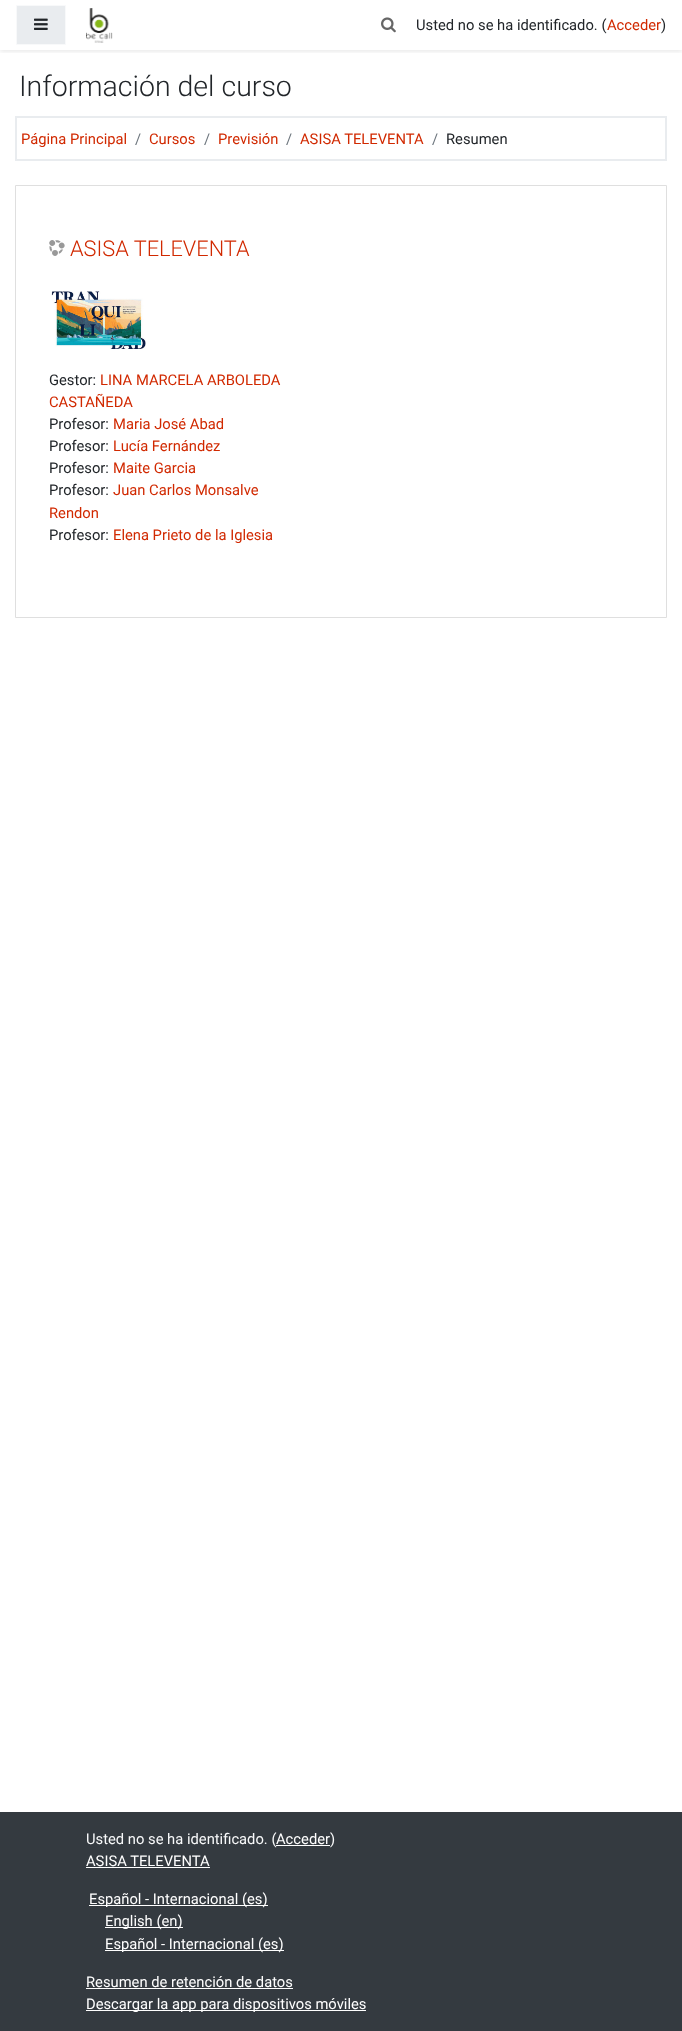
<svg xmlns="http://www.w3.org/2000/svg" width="682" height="2031">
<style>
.a{font:14.75px Roboto;fill:#212529}
.b{font:14.75px Roboto;fill:#d12900}
.c{font:300 28.5px Roboto;fill:#212529}
.d{font:14.75px Roboto;fill:#6c757d}
.e{font:300 21.75px Roboto;fill:#d12900}
.f{font:14.75px Roboto;fill:#f8f9fa}
.g{font:14.75px Roboto;fill:#fff}
</style>
<defs>
<clipPath id="clip1"><path d="M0 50h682v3H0z"/></clipPath>
</defs>
<rect width="100%" height="100%" fill="#fff"/>
<g clip-path="url(#clip1)">
<path fill="#00000014" filter="blur(2px)" d="M0 2h682v50H0z"/>
</g>
<path fill="#e9ecef" stroke="#f8f9fa" d="M16.5 5.5h49v39H16.5z"/>
<image href="1.png" x="34" y="18" width="14" height="12"/>
<image href="2.png" x="86" y="8" width="27" height="35"/>
<image href="3.png" x="381" y="17" width="15" height="16"/>
<path fill="none" stroke="#e9ecef" stroke-width="2" d="M16 117h650v43H16z"/>
<path fill="none" stroke="#dfdfdf" d="M15.5 185.5h651v432H15.5z"/>
<image href="4.png" x="49" y="240" width="16" height="16"/>
<image href="5.png" x="51" y="291" width="95" height="58"/>
<path fill="#343a40" d="M0 1812h682v219H0z"/>
<path fill="#fff" d="M86 1867h124v1H86z"/>
<path fill="#fff" d="M89 1905h179v1H89z"/>
<path fill="#fff" d="M105 1927h78v1H105z"/>
<path fill="#fff" d="M105 1950h179v1H105z"/>
<path fill="#fff" d="M86 1988h207v1H86z"/>
<path fill="#fff" d="M86 2010h280v1H86z"/>
<text class="a" x="416" y="30">Usted no se ha identificado. (</text>
<text class="b" x="607" y="30">Acceder</text>
<text class="a" x="661" y="30">)</text>
<text class="c" x="19" y="96">Información del curso</text>
<text class="b" x="21" y="144">Página Principal</text>
<text class="d" x="135" y="144">/</text>
<text class="b" x="149" y="144">Cursos</text>
<text class="d" x="204" y="144">/</text>
<text class="b" x="218" y="144">Previsión</text>
<text class="d" x="286" y="144">/</text>
<text class="b" x="300" y="144">ASISA TELEVENTA</text>
<text class="d" x="432" y="144">/</text>
<text class="a" x="446" y="144">Resumen</text>
<text class="e" x="70" y="256">ASISA TELEVENTA</text>
<text class="a" x="49" y="385">Gestor:</text>
<text class="b" x="100" y="385">LINA MARCELA ARBOLEDA</text>
<text class="b" x="49" y="407">CASTAÑEDA</text>
<text class="a" x="49" y="429">Profesor:</text>
<text class="b" x="113" y="429">Maria José Abad</text>
<text class="a" x="49" y="451">Profesor:</text>
<text class="b" x="113" y="451">Lucía Fernández</text>
<text class="a" x="49" y="473">Profesor:</text>
<text class="b" x="113" y="473">Maite Garcia</text>
<text class="a" x="49" y="495">Profesor:</text>
<text class="b" x="113" y="495">Juan Carlos Monsalve</text>
<text class="b" x="49" y="518">Rendon</text>
<text class="a" x="49" y="540">Profesor:</text>
<text class="b" x="113" y="540">Elena Prieto de la Iglesia</text>
<text class="f" x="86" y="1844">Usted no se ha identificado. (</text>
<text class="g" x="276" y="1844">Acceder</text>
<path fill="#fff" d="M276 1845h54v1H276z"/>
<text class="f" x="330" y="1844">)</text>
<text class="g" x="86" y="1866">ASISA TELEVENTA</text>
<text class="g" x="89" y="1904">Español - Internacional (es)</text>
<text class="g" x="105" y="1926">English (en)</text>
<text class="g" x="105" y="1949">Español - Internacional (es)</text>
<text class="g" x="86" y="1987">Resumen de retención de datos</text>
<text class="g" x="86" y="2009">Descargar la app para dispositivos móviles</text>
</svg>
